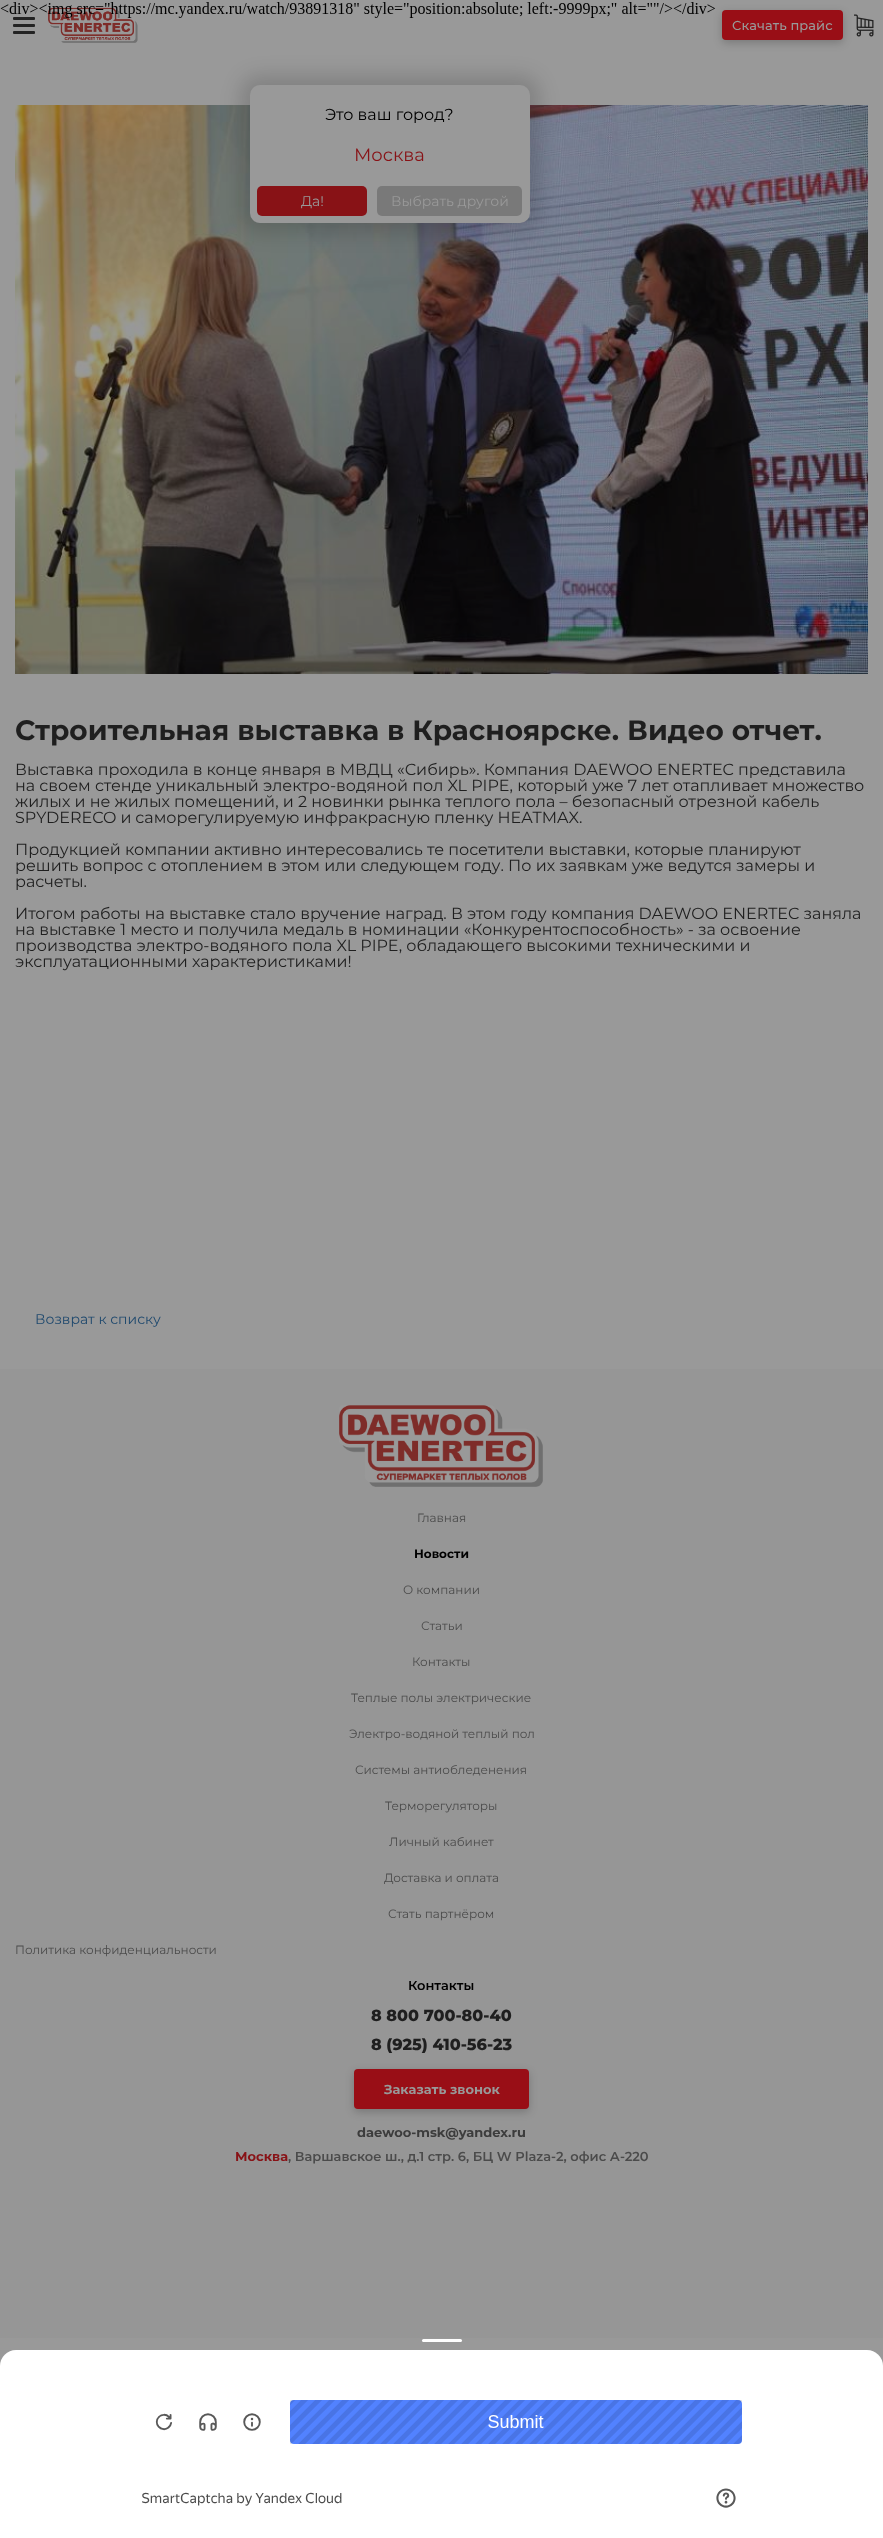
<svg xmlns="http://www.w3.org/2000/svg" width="883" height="2538">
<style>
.a{font:500 13px Montserrat;letter-spacing:0.1px;fill:#999}
.b{font:16px Montserrat;fill:#000}
.c{font:18px Montserrat;fill:#881216}
.d{font:14px Montserrat;fill:#999}
.e{font:bold 28px Montserrat;fill:#1f1f1f}
.f{font:16px Montserrat;fill:#1f1f1f}
.g{font:14px Montserrat;fill:#1f496e}
.h{font:12px Montserrat;fill:#4b4b4b}
.i{font:bold 12px Montserrat;fill:#000}
.j{font:600 13px Montserrat;fill:#000}
.k{font:800 16px Montserrat;fill:#1f1f1f}
.l{font:bold 13px Montserrat;fill:#999}
.m{font:bold 13px Montserrat;fill:#3c3c3c}
.n{font:bold 13px Montserrat;fill:#881216}
.o{font:600 13px Montserrat;fill:#4b4b4b}
</style>
<rect width="100%" height="100%" fill="#999"/>
<rect fill="#232323" x="13" y="17" width="22" height="3" rx="1"/>
<rect fill="#232323" x="13" y="24" width="22" height="3" rx="1"/>
<rect fill="#232323" x="13" y="31" width="22" height="3" rx="1"/>
<image href="2.png" x="48" y="7" width="90" height="36"/>
<rect fill="#00000033" filter="blur(4px)" x="722" y="13" width="121" height="30" rx="4"/>
<rect fill="#990e16" x="722" y="10" width="121" height="30" rx="4"/>
<image href="3.png" x="854" y="14" width="20" height="23"/>
<image href="4.png" x="15" y="105" width="853" height="569"/>
<rect fill="#00000026" filter="blur(9.5px)" x="240" y="75" width="300" height="158" rx="20"/>
<rect fill="#999" x="250" y="85" width="280" height="138" rx="10"/>
<rect fill="#881216" x="257" y="186" width="110" height="30" rx="5"/>
<rect fill="#797979" x="377" y="186" width="145" height="30" rx="5"/>
<path fill="#969696" d="M0 1369h883v969H0z"/>
<image href="5.png" x="339" y="1405" width="204" height="82"/>
<rect fill="#00000033" filter="blur(4px)" x="354" y="2072" width="175" height="40" rx="4"/>
<rect fill="#990e16" x="354" y="2069" width="175" height="40" rx="4"/>
<text class="a" x="732" y="30">Скачать прайс</text>
<text class="b" x="325" y="120">Это ваш город?</text>
<text class="c" x="354" y="161">Москва</text>
<text class="d" x="301" y="206">Да!</text>
<text class="d" x="391" y="206">Выбрать другой</text>
<text class="e" x="15" y="740">Строительная выставка в Красноярске. Видео отчет.</text>
<text class="f" x="15" y="775">Выставка проходила в конце января в МВДЦ «Сибирь». Компания DAEWOO ENERTEC представила</text>
<text class="f" x="15" y="791">на своем стенде уникальный электро-водяной пол XL PIPE, который уже 7 лет отапливает множество</text>
<text class="f" x="15" y="807">жилых и не жилых помещений, и 2 новинки рынка теплого пола – безопасный отрезной кабель</text>
<text class="f" x="15" y="823" word-spacing="-0.25">SPYDERECO и саморегулируемую инфракрасную пленку HEATMAX.</text>
<text class="f" x="15" y="855">Продукцией компании активно интересовались те посетители выставки, которые планируют</text>
<text class="f" x="15" y="871">решить вопрос с отоплением в этом или следующем году. По их заявкам уже ведутся замеры и</text>
<text class="f" x="15" y="887">расчеты.</text>
<text class="f" x="15" y="919">Итогом работы на выставке стало вручение наград. В этом году компания DAEWOO ENERTEC заняла</text>
<text class="f" x="15" y="935">на выставке 1 место и получила медаль в номинации «Конкурентоспособность» - за освоение</text>
<text class="f" x="15" y="951">производства электро-водяного пола XL PIPE, обладающего высокими техническими и</text>
<text class="f" x="15" y="967">эксплуатационными характеристиками!</text>
<text class="g" x="35" y="1324">Возврат к списку</text>
<text class="h" x="417" y="1522">Главная</text>
<text class="i" x="414" y="1558">Новости</text>
<text class="h" x="403" y="1594">О компании</text>
<text class="h" x="421" y="1630">Статьи</text>
<text class="h" x="412" y="1666">Контакты</text>
<text class="h" x="351" y="1702">Теплые полы электрические</text>
<text class="h" x="349" y="1738">Электро-водяной теплый пол</text>
<text class="h" x="355" y="1774">Системы антиобледенения</text>
<text class="h" x="385" y="1810">Терморегуляторы</text>
<text class="h" x="389" y="1846">Личный кабинет</text>
<text class="h" x="384" y="1882">Доставка и оплата</text>
<text class="h" x="388" y="1918">Стать партнёром</text>
<text class="h" x="15" y="1954">Политика конфиденциальности</text>
<text class="j" x="408" y="1990">Контакты</text>
<text class="k" x="371" y="2021">8 800 700-80-40</text>
<text class="k" x="371" y="2050">8 (925) 410-56-23</text>
<text class="l" x="384" y="2094">Заказать звонок</text>
<text class="m" x="357" y="2137">daewoo-msk@yandex.ru</text>
<text class="n" x="235" y="2161">Москва</text>
<text class="o" x="288" y="2161">, Варшавское ш., д.1 стр. 6, БЦ W Plaza-2, офис А-220</text>
<image href="1.png" x="0" y="2" width="883" height="2536"/>
</svg>
